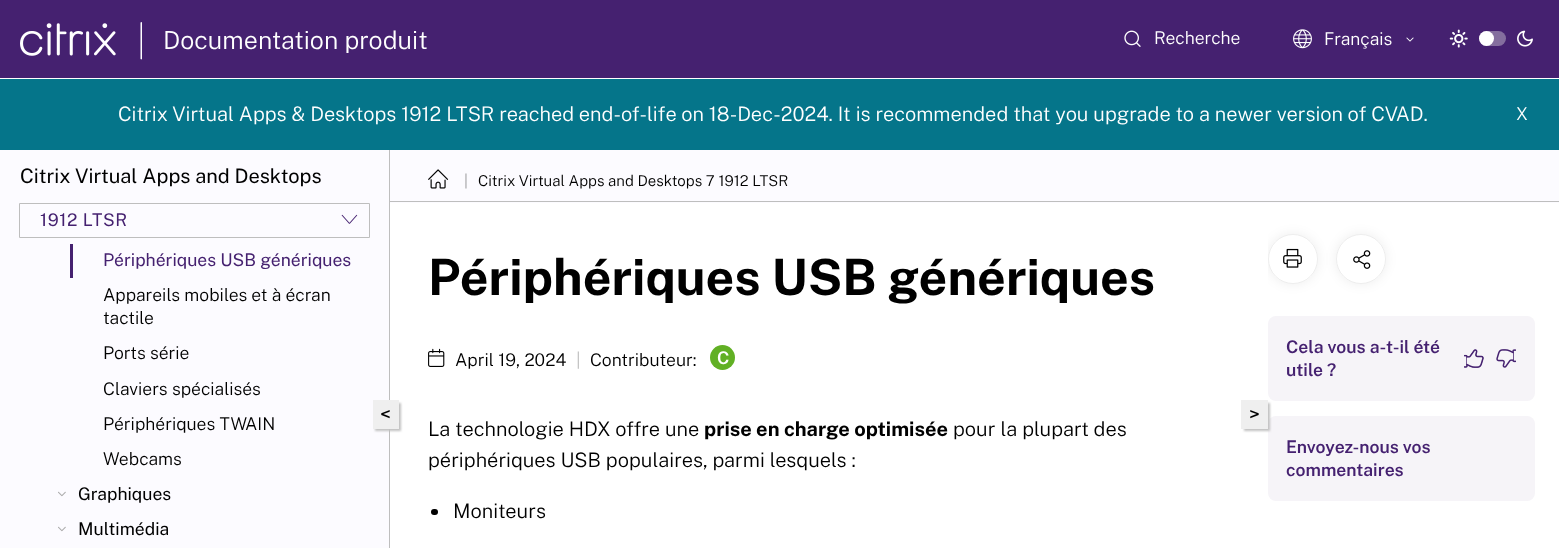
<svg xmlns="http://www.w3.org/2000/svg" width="1559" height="548">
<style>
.a{font:300 25px Public Sans;fill:#fff}
.b{font:300 17.5px Public Sans;fill:#fff}
.c{font:300 20px Public Sans;fill:#fff}
.d{font:20px Public Sans;fill:#000}
.e{font:17.5px Public Sans;letter-spacing:0.6px;fill:#452170}
.f{font:17.5px Public Sans;fill:#452170}
.g{font:300 17.5px Public Sans;fill:#000}
.h{font:17.5px Public Sans;fill:#000}
.i{font:300 15px Public Sans;fill:#979799}
.j{font:300 15px Public Sans;fill:#000}
.k{font:bold 50px Public Sans;fill:#000}
.l{font:300 17.5px Public Sans;fill:#bebebe}
.m{font:600 17.5px Public Sans;fill:#fff}
.n{font:300 20px Public Sans;fill:#000}
.o{font:bold 20px Public Sans;fill:#000}
.p{font:600 17.5px Public Sans;fill:#452170}
</style>
<defs>
<clipPath id="clip1"><path d="M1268 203h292v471H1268z"/></clipPath>
</defs>
<rect width="100%" height="100%" fill="#fff"/>
<path fill="#452170" d="M0 0h1559v78H0z"/>
<image href="1.png" x="20" y="23" width="96" height="33"/>
<path fill="#fff" d="M141.5 22l-1 .5v36.5l1 .5l.5-.5v-36.5z"/>
<image href="2.png" x="1124" y="30" width="17" height="17"/>
<image href="3.png" x="1293" y="29" width="19" height="20"/>
<image href="4.png" x="1406" y="37" width="8" height="5"/>
<image href="5.png" x="1449" y="29" width="19" height="19"/>
<rect fill="#846e9e" x="1479" y="31" width="27" height="15" rx="7.5"/>
<circle fill="#fff" cx="1486.5" cy="38.5" r="7.5"/>
<image href="6.png" x="1517" y="30" width="16" height="17"/>
<path fill="#05758a" d="M0 79h1559v71H0z"/>
<path fill="#fcfbff" d="M0 150h389v398H0z"/>
<path fill="#bebebe" d="M389 150h1v398H389z"/>
<path fill="none" stroke="#bebebe" d="M19.5 203.5h350v34H19.5z"/>
<image href="7.png" x="341" y="214" width="17" height="10"/>
<path fill="#452170" d="M70 244h3v34H70z"/>
<image href="8.png" x="58" y="491" width="8" height="6"/>
<image href="8.png" x="58" y="526" width="8" height="6"/>
<path fill="#fcfbff" d="M390 150h1169v53H390z"/>
<path fill="#bebebe" d="M390 201h1169v1H390z"/>
<image href="9.png" x="428" y="169" width="21" height="20"/>
<path fill="#c1c1c1" filter="blur(1px)" d="M375 403h26v28H375z"/>
<path fill="#efefef" d="M373 400h26v29H373z"/>
<image href="10.png" x="428" y="348" width="17" height="19"/>
<circle fill="#61b024" cx="722.5" cy="357.5" r="12.5"/>
<rect fill="#000" x="431" y="509" width="7" height="6" rx="3"/>
<rect fill="#f6f4f8" x="1268" y="316" width="267" height="85" rx="8"/>
<rect fill="#f6f4f8" x="1268" y="416" width="267" height="85" rx="8"/>
<path fill="#c1c1c1" filter="blur(1px)" d="M1244 403h26v28H1244z"/>
<path fill="#efefef" d="M1241 400h27v29H1241z"/>
<g clip-path="url(#clip1)">
<rect fill="#00000012" filter="blur(6px)" x="1268" y="234" width="50" height="50" rx="25"/>
</g>
<circle fill="#fff" cx="1293" cy="259" r="25"/>
<circle fill="none" stroke="#00000012" cx="1293" cy="259" r="24.5"/>
<image href="11.png" x="1283" y="248" width="19" height="20"/>
<rect fill="#00000012" filter="blur(6px)" x="1336" y="234" width="50" height="50" rx="25"/>
<circle fill="#fff" cx="1361" cy="259" r="25"/>
<circle fill="none" stroke="#00000012" cx="1361" cy="259" r="24.5"/>
<image href="12.png" x="1353" y="250" width="18" height="19"/>
<image href="13.png" x="1464" y="349" width="20" height="19"/>
<image href="14.png" x="1496" y="349" width="20" height="19"/>
<text class="a" x="163" y="49">Documentation produit</text>
<text class="b" x="1154" y="44">Recherche</text>
<text class="b" x="1324" y="45">Français</text>
<text class="c" x="118" y="121">Citrix Virtual Apps &amp; Desktops 1912 LTSR reached end-of-life on 18-Dec-2024. It is recommended that you upgrade to a newer version of CVAD.</text>
<text class="b" x="1516" y="120">X</text>
<text class="d" x="20" y="183">Citrix Virtual Apps and Desktops</text>
<text class="e" x="40" y="226">1912 LTSR</text>
<text class="f" x="103" y="266">Périphériques USB génériques</text>
<text class="g" x="103" y="301">Appareils mobiles et à écran</text>
<text class="g" x="103" y="324">tactile</text>
<text class="g" x="103" y="359">Ports série</text>
<text class="g" x="103" y="395">Claviers spécialisés</text>
<text class="g" x="103" y="430">Périphériques TWAIN</text>
<text class="g" x="103" y="465">Webcams</text>
<text class="h" x="78" y="500">Graphiques</text>
<text class="h" x="78" y="535">Multimédia</text>
<text class="i" x="464" y="186">|</text>
<text class="j" x="478" y="186">Citrix Virtual Apps and Desktops 7 1912 LTSR</text>
<text class="d" x="380" y="421">&lt;</text>
<text class="k" x="428" y="295">Périphériques USB génériques</text>
<text class="g" x="455" y="366">April 19, 2024</text>
<text class="l" x="576" y="366">|</text>
<text class="g" x="590" y="366">Contributeur:</text>
<text class="m" x="717" y="364">C</text>
<text class="n" x="428" y="436">La technologie HDX offre une</text>
<text class="o" x="704" y="436">prise en charge optimisée</text>
<text class="n" x="953" y="436">pour la plupart des</text>
<text class="n" x="428" y="467">périphériques USB populaires, parmi lesquels :</text>
<text class="n" x="453" y="518">Moniteurs</text>
<text class="d" x="1249" y="421">&gt;</text>
<text class="p" x="1286" y="353">Cela vous a-t-il été</text>
<text class="p" x="1286" y="376">utile ?</text>
<text class="p" x="1286" y="453">Envoyez-nous vos</text>
<text class="p" x="1286" y="476">commentaires</text>
</svg>
